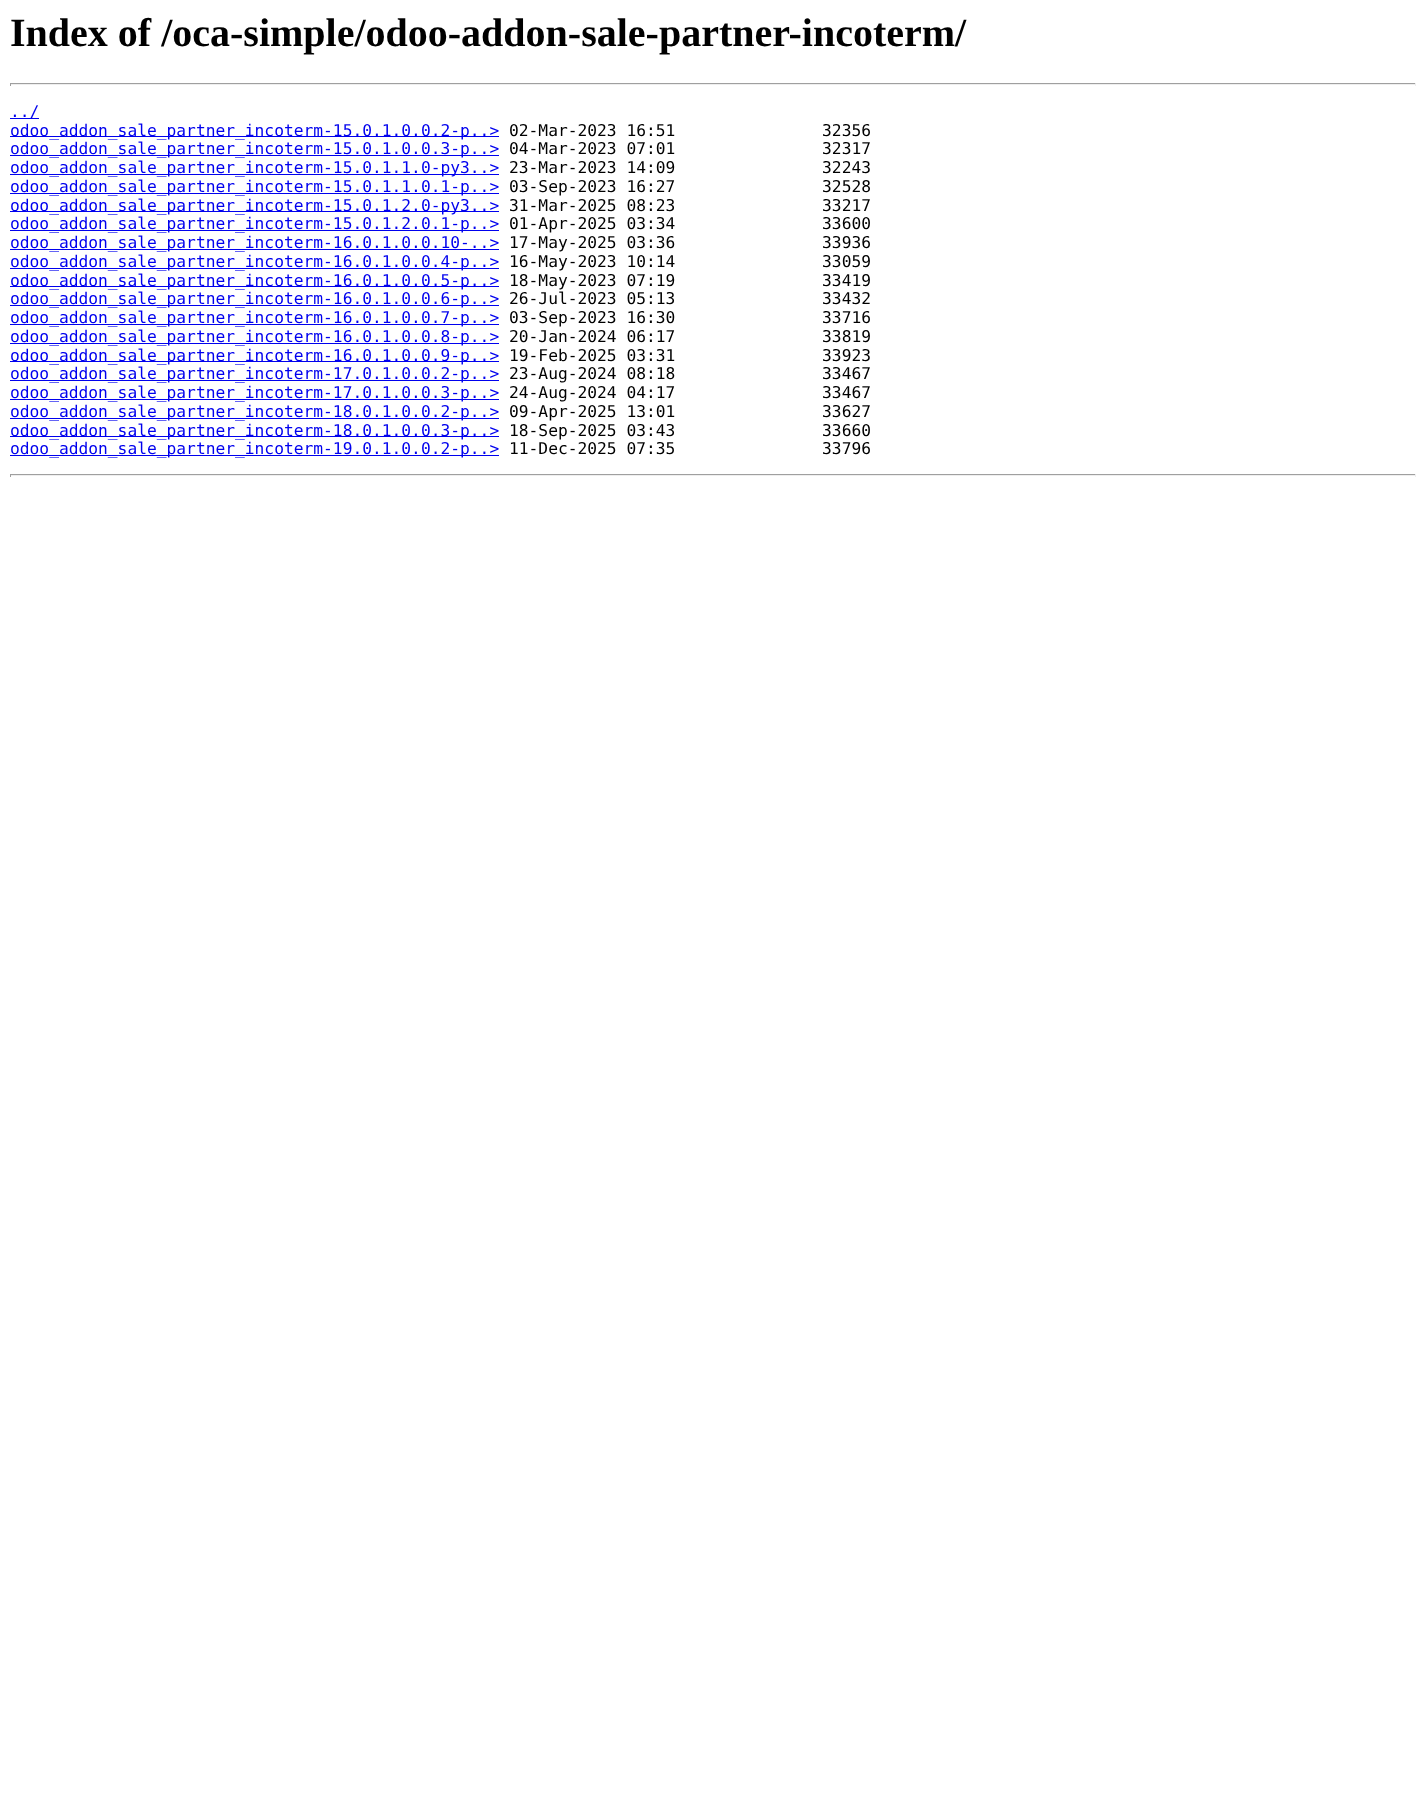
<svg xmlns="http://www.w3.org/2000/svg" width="1426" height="1812">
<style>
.a{font:bold 40px Liberation Serif;fill:#000}
.b{font:16.25px DejaVu Sans Mono;fill:#00e}
.c{font:16.25px DejaVu Sans Mono;fill:#000}
</style>
<rect width="100%" height="100%" fill="#fff"/>
<path fill="#9f9f9f" d="M10 83h1406v1H10z"/>
<path fill="#eee" d="M1415 83h1v3H1415z"/>
<path fill="#eee" d="M10 84h1406v1H10z"/>
<path fill="#9f9f9f" d="M10 83h1v3H10z"/>
<path fill="#00e" d="M10 118h29v1H10z"/>
<path fill="#00e" d="M10 136h489v1H10z"/>
<path fill="#00e" d="M10 155h489v1H10z"/>
<path fill="#00e" d="M10 174h489v1H10z"/>
<path fill="#00e" d="M10 193h489v1H10z"/>
<path fill="#00e" d="M10 211h489v1H10z"/>
<path fill="#00e" d="M10 230h489v1H10z"/>
<path fill="#00e" d="M10 249h489v1H10z"/>
<path fill="#00e" d="M10 268h489v1H10z"/>
<path fill="#00e" d="M10 286h489v1H10z"/>
<path fill="#00e" d="M10 305h489v1H10z"/>
<path fill="#00e" d="M10 324h489v1H10z"/>
<path fill="#00e" d="M10 343h489v1H10z"/>
<path fill="#00e" d="M10 361h489v1H10z"/>
<path fill="#00e" d="M10 380h489v1H10z"/>
<path fill="#00e" d="M10 399h489v1H10z"/>
<path fill="#00e" d="M10 418h489v1H10z"/>
<path fill="#00e" d="M10 436h489v1H10z"/>
<path fill="#00e" d="M10 455h489v1H10z"/>
<path fill="#9f9f9f" d="M10 474h1406v1H10z"/>
<path fill="#eee" d="M1415 474h1v3H1415z"/>
<path fill="#eee" d="M10 475h1406v1H10z"/>
<path fill="#9f9f9f" d="M10 474h1v3H10z"/>
<text class="a" x="10" y="46">Index of /oca-simple/odoo-addon-sale-partner-incoterm/</text>
<text class="b" x="10" y="117">../</text>
<text class="b" x="10" y="136">odoo_addon_sale_partner_incoterm-15.0.1.0.0.2-p..&gt;</text>
<text class="c" xml:space="preserve" x="509" y="136">02-Mar-2023 16:51               32356</text>
<text class="b" x="10" y="154">odoo_addon_sale_partner_incoterm-15.0.1.0.0.3-p..&gt;</text>
<text class="c" xml:space="preserve" x="509" y="154">04-Mar-2023 07:01               32317</text>
<text class="b" x="10" y="173">odoo_addon_sale_partner_incoterm-15.0.1.1.0-py3..&gt;</text>
<text class="c" xml:space="preserve" x="509" y="173">23-Mar-2023 14:09               32243</text>
<text class="b" x="10" y="192">odoo_addon_sale_partner_incoterm-15.0.1.1.0.1-p..&gt;</text>
<text class="c" xml:space="preserve" x="509" y="192">03-Sep-2023 16:27               32528</text>
<text class="b" x="10" y="211">odoo_addon_sale_partner_incoterm-15.0.1.2.0-py3..&gt;</text>
<text class="c" xml:space="preserve" x="509" y="211">31-Mar-2025 08:23               33217</text>
<text class="b" x="10" y="229">odoo_addon_sale_partner_incoterm-15.0.1.2.0.1-p..&gt;</text>
<text class="c" xml:space="preserve" x="509" y="229">01-Apr-2025 03:34               33600</text>
<text class="b" x="10" y="248">odoo_addon_sale_partner_incoterm-16.0.1.0.0.10-..&gt;</text>
<text class="c" xml:space="preserve" x="509" y="248">17-May-2025 03:36               33936</text>
<text class="b" x="10" y="267">odoo_addon_sale_partner_incoterm-16.0.1.0.0.4-p..&gt;</text>
<text class="c" xml:space="preserve" x="509" y="267">16-May-2023 10:14               33059</text>
<text class="b" x="10" y="286">odoo_addon_sale_partner_incoterm-16.0.1.0.0.5-p..&gt;</text>
<text class="c" xml:space="preserve" x="509" y="286">18-May-2023 07:19               33419</text>
<text class="b" x="10" y="304">odoo_addon_sale_partner_incoterm-16.0.1.0.0.6-p..&gt;</text>
<text class="c" xml:space="preserve" x="509" y="304">26-Jul-2023 05:13               33432</text>
<text class="b" x="10" y="323">odoo_addon_sale_partner_incoterm-16.0.1.0.0.7-p..&gt;</text>
<text class="c" xml:space="preserve" x="509" y="323">03-Sep-2023 16:30               33716</text>
<text class="b" x="10" y="342">odoo_addon_sale_partner_incoterm-16.0.1.0.0.8-p..&gt;</text>
<text class="c" xml:space="preserve" x="509" y="342">20-Jan-2024 06:17               33819</text>
<text class="b" x="10" y="361">odoo_addon_sale_partner_incoterm-16.0.1.0.0.9-p..&gt;</text>
<text class="c" xml:space="preserve" x="509" y="361">19-Feb-2025 03:31               33923</text>
<text class="b" x="10" y="379">odoo_addon_sale_partner_incoterm-17.0.1.0.0.2-p..&gt;</text>
<text class="c" xml:space="preserve" x="509" y="379">23-Aug-2024 08:18               33467</text>
<text class="b" x="10" y="398">odoo_addon_sale_partner_incoterm-17.0.1.0.0.3-p..&gt;</text>
<text class="c" xml:space="preserve" x="509" y="398">24-Aug-2024 04:17               33467</text>
<text class="b" x="10" y="417">odoo_addon_sale_partner_incoterm-18.0.1.0.0.2-p..&gt;</text>
<text class="c" xml:space="preserve" x="509" y="417">09-Apr-2025 13:01               33627</text>
<text class="b" x="10" y="436">odoo_addon_sale_partner_incoterm-18.0.1.0.0.3-p..&gt;</text>
<text class="c" xml:space="preserve" x="509" y="436">18-Sep-2025 03:43               33660</text>
<text class="b" x="10" y="454">odoo_addon_sale_partner_incoterm-19.0.1.0.0.2-p..&gt;</text>
<text class="c" xml:space="preserve" x="509" y="454">11-Dec-2025 07:35               33796</text>
</svg>
